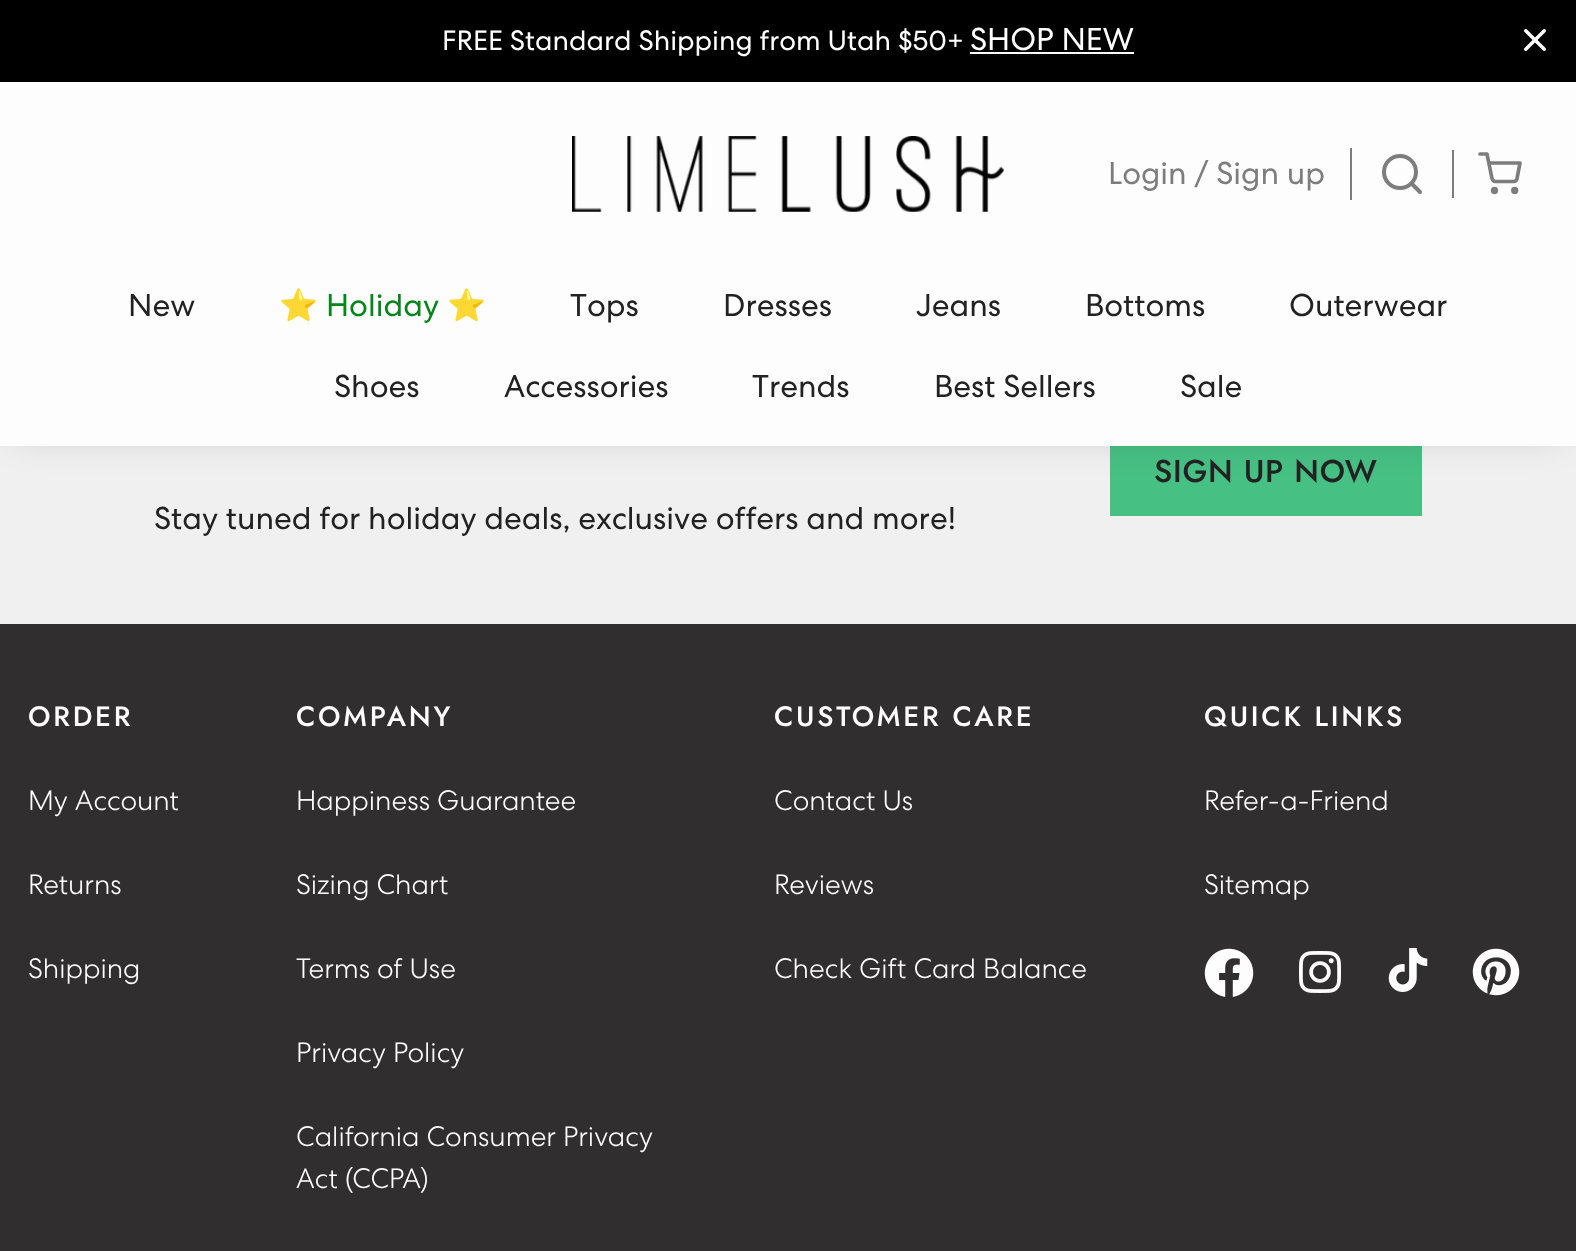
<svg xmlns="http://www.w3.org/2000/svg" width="1576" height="1251">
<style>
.a{font:28px 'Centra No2';fill:#fff}
.b{font:31.5px 'Centra No2';fill:#fff}
.c{font:31.5px 'Centra No2';fill:#7d7d7d}
.d{font:31.5px 'Centra No2';fill:#222}
.e{font:31.5px Noto Color Emoji;fill:#04861a}
.f{font:31.5px 'Centra No2';fill:#04861a}
.g{font:500 31.5px Jost;letter-spacing:0.75px;fill:#222}
.h{font:500 28px Jost;letter-spacing:2.75px;fill:#fff}
.i{font:300 28px 'Centra No2';fill:#fff}
</style>
<rect width="100%" height="100%" fill="#f0f0f0"/>
<path fill="#47c084" d="M1110 446h312v70H1110z"/>
<path fill="#00000040" filter="blur(20px)" d="M16 96h1544v334H16z"/>
<path fill="#000" d="M0 0h1576v82H0z"/>
<path fill="#fff" d="M970 52h164v2H970z"/>
<image href="1.png" x="1524" y="29" width="22" height="22"/>
<path fill="#fdfdfd" d="M0 82h1576v364H0z"/>
<image href="2.png" x="572" y="136" width="432" height="76"/>
<path fill="#7d7d7d" d="M1350 148h2v52H1350z"/>
<path fill="#7d7d7d" d="M1452 150h2v48H1452z"/>
<circle fill="none" stroke="#7d7d7d" stroke-width="4" cx="1400" cy="172" r="16"/>
<path fill="none" stroke="#7d7d7d" stroke-width="4" stroke-linecap="round" stroke-linejoin="round" d="M1420 192l-8.5-8.5"/>
<circle fill="none" stroke="#7d7d7d" stroke-width="3.7" cx="1494.5" cy="190.5" r="1.8"/>
<circle fill="none" stroke="#7d7d7d" stroke-width="3.7" cx="1514.7" cy="190.5" r="1.8"/>
<path fill="none" stroke="#7d7d7d" stroke-width="3.7" stroke-linecap="round" stroke-linejoin="round" d="M1480 154h7l5 24.5c.5 1.5 2 3 3.5 3h18c2 0 3.5-1.5 3.5-3l3-15.5h-31"/>
<path fill="#302e2f" d="M0 624h1576v627H0z"/>
<image href="3.png" x="1204" y="948" width="50" height="49"/>
<image href="4.png" x="1299" y="951" width="42" height="42"/>
<image href="5.png" x="1388" y="948" width="40" height="44"/>
<image href="6.png" x="1472" y="948" width="48" height="48"/>
<text class="a" x="442" y="50">FREE Standard Shipping from Utah $50+</text>
<text class="b" x="970" y="50">SHOP NEW</text>
<text class="c" x="1108" y="184">Login / Sign up</text>
<text class="d" x="128" y="316">New</text>
<text class="e" x="279" y="316">⭐️</text>
<text class="f" x="326" y="316">Holiday</text>
<text class="e" x="447" y="316">⭐️</text>
<text class="d" x="570" y="316">Tops</text>
<text class="d" x="723" y="316">Dresses</text>
<text class="d" x="916" y="316">Jeans</text>
<text class="d" x="1085" y="316">Bottoms</text>
<text class="d" x="1289" y="316">Outerwear</text>
<text class="d" x="334" y="397">Shoes</text>
<text class="d" x="504" y="397">Accessories</text>
<text class="d" x="752" y="397">Trends</text>
<text class="d" x="934" y="397">Best Sellers</text>
<text class="d" x="1180" y="397">Sale</text>
<text class="g" x="1154" y="482">SIGN UP NOW</text>
<text class="d" x="154" y="529">Stay tuned for holiday deals, exclusive offers and more!</text>
<text class="h" x="28" y="726">ORDER</text>
<text class="i" x="28" y="810">My Account</text>
<text class="i" x="28" y="894">Returns</text>
<text class="i" x="28" y="978">Shipping</text>
<text class="h" x="296" y="726">COMPANY</text>
<text class="i" x="296" y="810">Happiness Guarantee</text>
<text class="i" x="296" y="894">Sizing Chart</text>
<text class="i" x="296" y="978">Terms of Use</text>
<text class="i" x="296" y="1062">Privacy Policy</text>
<text class="i" x="296" y="1146">California Consumer Privacy</text>
<text class="i" x="296" y="1188">Act (CCPA)</text>
<text class="h" x="774" y="726">CUSTOMER CARE</text>
<text class="i" x="774" y="810">Contact Us</text>
<text class="i" x="774" y="894">Reviews</text>
<text class="i" x="774" y="978">Check Gift Card Balance</text>
<text class="h" x="1204" y="726">QUICK LINKS</text>
<text class="i" x="1204" y="810">Refer-a-Friend</text>
<text class="i" x="1204" y="894">Sitemap</text>
</svg>
